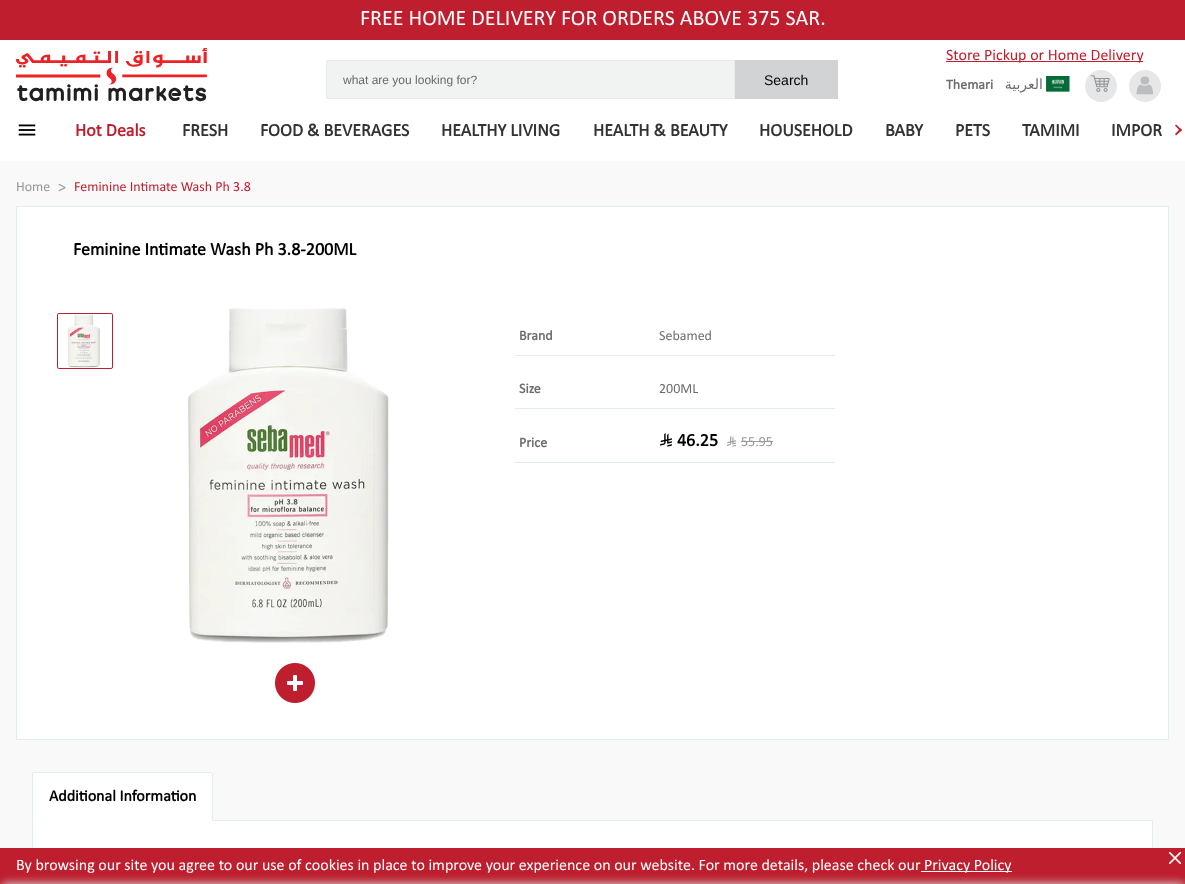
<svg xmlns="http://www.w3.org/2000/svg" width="1185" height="884">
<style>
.a{font:22px Calibri;fill:#fff}
.b{font:12px Liberation Sans;fill:#696969}
.c{font:14px Liberation Sans;fill:#000}
.d{font:16px Calibri;fill:#be1e2d}
.e{font:bold 14px Calibri;fill:#6d6e71}
.f{font:14px DejaVu Sans;direction:rtl;fill:#6d6e71}
.g{font:bold 18px Calibri;fill:#be1e2d}
.h{font:bold 18px Calibri;fill:#333}
.i{font:14px Calibri;fill:#979797}
.j{font:16px Calibri;fill:#979797}
.k{font:14px Calibri;fill:#be1e2d}
.l{font:bold 18px Calibri;fill:#000}
.m{font:14px Calibri;fill:#6d6e71}
.n{font:bold 16px Calibri;fill:#000}
.o{font:16px Calibri;fill:#fff}
</style>
<rect width="100%" height="100%" fill="#f9f9fa"/>
<path fill="#be1e2d" d="M0 0h1185v40H0z"/>
<path fill="#fff" d="M0 40h1185v121H0z"/>
<image href="1.png" x="16" y="48" width="192" height="54"/>
<path fill="#f1f2f2" stroke="#eaeaea" d="M326.5 60.5h408v38H326.5z"/>
<path fill="#d1d3d4" d="M735 60h103v39H735z"/>
<path fill="#be1e2d" d="M946 61h197v1H946z"/>
<image href="2.png" x="1046" y="76" width="24" height="16"/>
<circle fill="#e6e7e8" cx="1101" cy="86" r="16"/>
<image href="3.png" x="1090" y="75" width="20" height="17"/>
<circle fill="#e6e7e8" cx="1145" cy="86" r="16"/>
<image href="4.png" x="1136" y="76" width="18" height="19"/>
<image href="5.png" x="18" y="124" width="18" height="12"/>
<path fill="#be1e2d" d="M1175 125.5l1-1l6 5.5l-1.5 1.5z"/>
<path fill="#be1e2d" d="M1175 134l5.5-5.5l1.5 1.5l-6 5.5z"/>
<path fill="#fff" stroke="#e0edf3" d="M16.5 206.5h1152v533H16.5z"/>
<rect fill="none" stroke="#be1e2d" x="57.5" y="313.5" width="55" height="55" rx="1.5"/>
<image href="6.png" x="68" y="314" width="32" height="54"/>
<image href="7.png" x="187" y="307" width="202" height="336"/>
<image href="8.png" x="275" y="663" width="40" height="40"/>
<path fill="#e0edf3" d="M515 355h320v1H515z"/>
<path fill="#e0edf3" d="M515 408h320v1H515z"/>
<path fill="#e0edf3" d="M515 462h320v1H515z"/>
<image href="9.png" x="660" y="433" width="12" height="14"/>
<image href="10.png" x="727" y="436" width="9" height="11"/>
<path fill="#fff" d="M33 821h1119v27H33z"/>
<path fill="none" stroke="#e0edf3" d="M32.5 820.5h1120v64H32.5z"/>
<rect fill="#fff" x="32" y="772" width="181" height="49" rx="2"/>
<path fill="#e0edf3" d="M33 772h179v1H33z"/>
<path fill="#e0edf3" d="M212 773h1v47H212z"/>
<path fill="#e0edf3" d="M32 773h1v47H32z"/>
<path fill="#be1e2d" d="M0 848h1185v36H0z"/>
<path fill="#fff" d="M921 871h91v1H921z"/>
<image href="11.png" x="1168" y="851" width="14" height="14"/>
<path fill="#ccc" filter="blur(4px)" d="M3 883h1181v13H3z"/>
<text class="a" x="360" y="25">FREE HOME DELIVERY FOR ORDERS ABOVE 375 SAR.</text>
<text class="b" x="343" y="84">what are you looking for?</text>
<text class="c" x="764" y="85">Search</text>
<text class="d" x="946" y="60">Store Pickup or Home Delivery</text>
<text class="e" x="946" y="89">Themari</text>
<text class="f" x="1043" y="89">العربية</text>
<text class="g" x="75" y="136">Hot Deals</text>
<text class="h" x="182" y="136">FRESH</text>
<text class="h" x="260" y="136">FOOD &amp; BEVERAGES</text>
<text class="h" x="441" y="136">HEALTHY LIVING</text>
<text class="h" x="593" y="136">HEALTH &amp; BEAUTY</text>
<text class="h" x="759" y="136">HOUSEHOLD</text>
<text class="h" x="885" y="136">BABY</text>
<text class="h" x="955" y="136">PETS</text>
<text class="h" x="1022" y="136">TAMIMI</text>
<text class="h" x="1111" y="136">IMPOR</text>
<text class="i" x="16" y="191">Home</text>
<text class="j" x="58" y="192">&gt;</text>
<text class="k" x="74" y="191">Feminine Intimate Wash Ph 3.8</text>
<text class="l" x="73" y="255">Feminine Intimate Wash Ph 3.8-200ML</text>
<text class="e" x="519" y="340">Brand</text>
<text class="m" x="659" y="340">Sebamed</text>
<text class="e" x="519" y="393">Size</text>
<text class="m" x="659" y="393">200ML</text>
<text class="e" x="519" y="447">Price</text>
<text class="l" x="677" y="446">46.25</text>
<text class="i" x="741" y="446">55.95</text>
<path fill="#9b9b9b" d="M741 441h32v1H741z"/>
<text class="n" x="49" y="801">Additional Information</text>
<text class="o" x="16" y="870">By browsing our site you agree to our use of cookies in place to improve your experience on our website. For more details, please check our</text>
<text class="o" x="924" y="870">Privacy Policy</text>
</svg>
